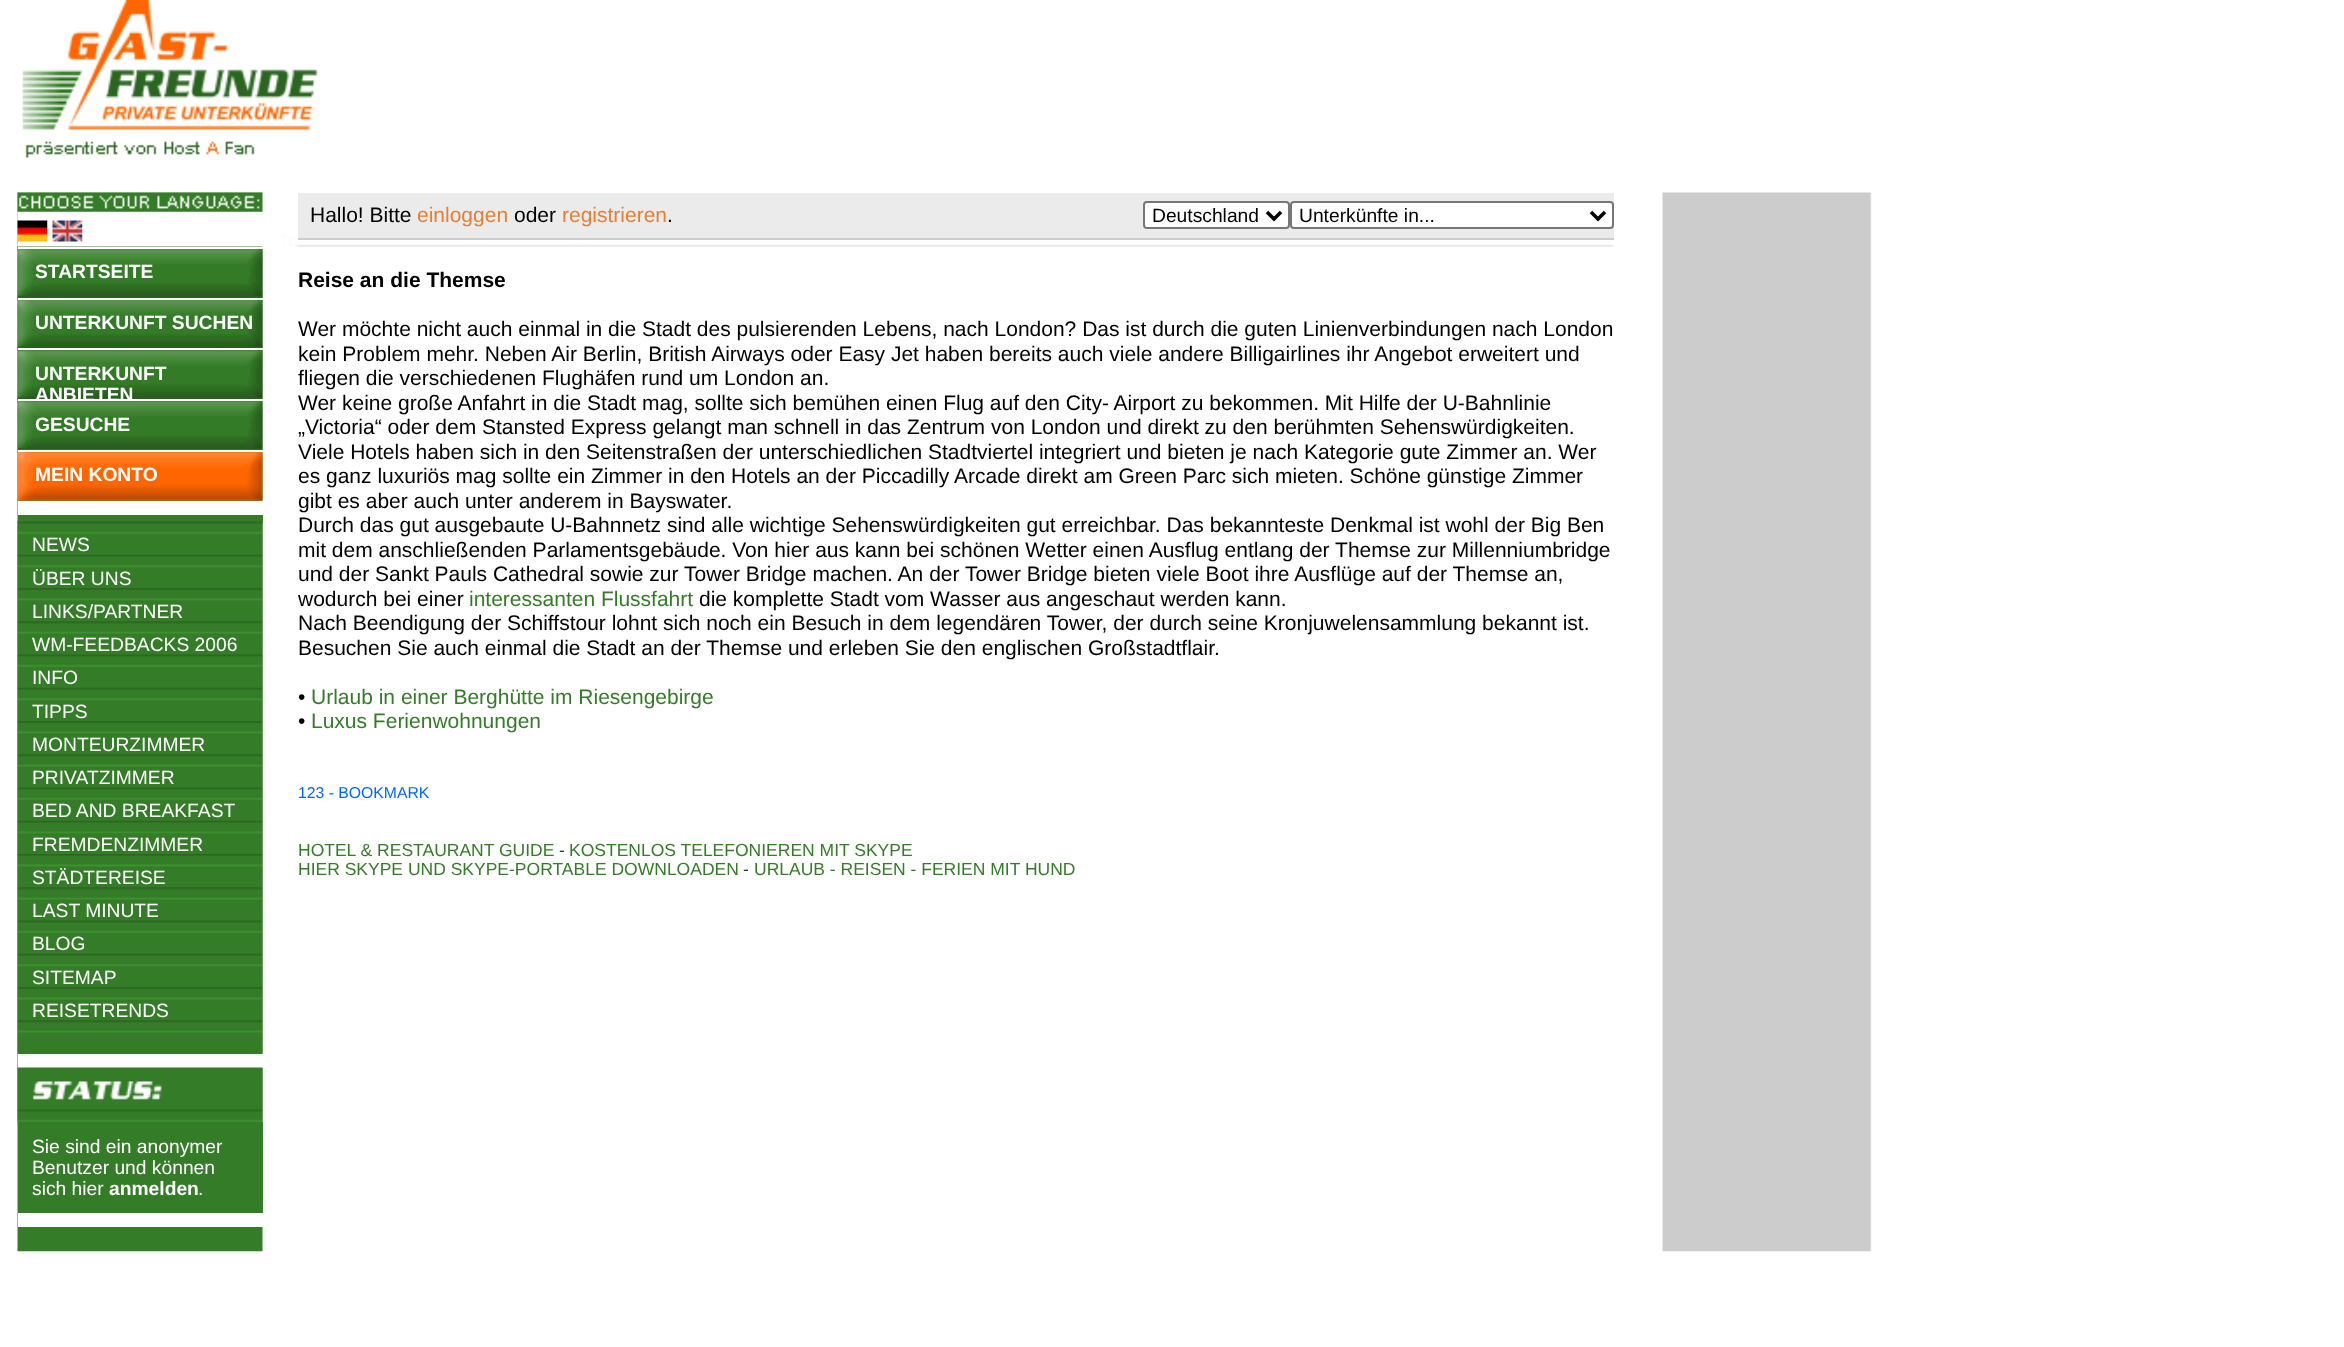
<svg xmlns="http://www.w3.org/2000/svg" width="2344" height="1347">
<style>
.a{font:bold 19.25px Liberation Sans;fill:#fff}
.b{font:19.25px Liberation Sans;fill:#fff}
.c{font:21px Liberation Sans;fill:#000}
.d{font:21px Liberation Sans;fill:#e67e33}
.e{font:19.25px Liberation Sans;fill:#000}
.f{font:bold 21px Liberation Sans;fill:#000}
.g{font:21px Liberation Sans;fill:#347c27}
.h{font:15.75px Liberation Sans;fill:#06f}
.i{font:17.5px Liberation Sans;fill:#347c27}
.j{font:17.5px Liberation Sans;fill:#333}
</style>
<rect width="100%" height="100%" fill="#fff"/>
<image href="1.png" x="22" y="0" width="296" height="158"/>
<image href="2.png" x="17" y="192" width="1855" height="1060"/>
<image href="3.png" x="17" y="192" width="1597" height="55"/>
<image href="4.png" x="17" y="192" width="246" height="20"/>
<image href="5.png" x="17" y="220" width="31" height="22"/>
<image href="6.png" x="52" y="220" width="31" height="22"/>
<path fill="#fff" d="M18 501h245v14H18z"/>
<image href="7.png" x="17" y="246" width="246" height="52"/>
<path fill="#fff" d="M18 247h245v2H18z"/>
<image href="8.png" x="17" y="297" width="246" height="52"/>
<path fill="#fff" d="M18 298h245v2H18z"/>
<image href="9.png" x="17" y="348" width="246" height="51"/>
<path fill="#fff" d="M18 348h245v2H18z"/>
<image href="10.png" x="17" y="399" width="246" height="51"/>
<path fill="#fff" d="M18 399h245v2H18z"/>
<image href="11.png" x="17" y="449" width="246" height="52"/>
<path fill="#fff" d="M18 450h245v2H18z"/>
<path fill="#347c27" d="M262 515h1v7H262z"/>
<path fill="#fff" d="M18 1054h245v14H18z"/>
<image href="12.png" x="17" y="521" width="246" height="34"/>
<image href="13.png" x="17" y="554" width="246" height="34"/>
<image href="14.png" x="17" y="588" width="246" height="34"/>
<image href="15.png" x="17" y="621" width="246" height="34"/>
<image href="16.png" x="17" y="654" width="246" height="34"/>
<image href="13.png" x="17" y="687" width="246" height="34"/>
<image href="14.png" x="17" y="721" width="246" height="34"/>
<image href="15.png" x="17" y="754" width="246" height="34"/>
<image href="16.png" x="17" y="787" width="246" height="34"/>
<image href="13.png" x="17" y="820" width="246" height="34"/>
<image href="14.png" x="17" y="854" width="246" height="34"/>
<image href="15.png" x="17" y="887" width="246" height="34"/>
<image href="16.png" x="17" y="920" width="246" height="34"/>
<image href="13.png" x="17" y="953" width="246" height="34"/>
<image href="14.png" x="17" y="987" width="246" height="34"/>
<image href="15.png" x="17" y="1020" width="246" height="34"/>
<image href="17.png" x="17" y="1067" width="246" height="55"/>
<path fill="#347c27" d="M262 1122h1v91H262z"/>
<path fill="#fff" d="M18 1213h245v14H18z"/>
<path fill="#ebebeb" d="M298 193h1316v45H298z"/>
<path fill="#ccc" d="M298 238h1316v2H298z"/>
<rect fill="#fff" stroke="#767676" stroke-width="2" x="1144" y="202" width="145" height="26" rx="3"/>
<path fill="none" stroke="#000" stroke-width="3.5" d="M1267 212l7 7l7-7"/>
<rect fill="#fff" stroke="#767676" stroke-width="2" x="1291" y="202" width="322" height="26" rx="3"/>
<path fill="none" stroke="#000" stroke-width="3.5" d="M1591 212l7 7l7-7"/>
<text class="a" x="35" y="278">STARTSEITE</text>
<text class="a" x="35" y="329">UNTERKUNFT SUCHEN</text>
<text class="a" x="35" y="380">UNTERKUNFT</text>
<text class="a" x="35" y="401">ANBIETEN</text>
<text class="a" x="35" y="431">GESUCHE</text>
<text class="a" x="35" y="481">MEIN KONTO</text>
<text class="b" x="32" y="551">NEWS</text>
<text class="b" x="32" y="585">ÜBER UNS</text>
<text class="b" x="32" y="618">LINKS/PARTNER</text>
<text class="b" x="32" y="651">WM-FEEDBACKS 2006</text>
<text class="b" x="32" y="684">INFO</text>
<text class="b" x="32" y="718">TIPPS</text>
<text class="b" x="32" y="751">MONTEURZIMMER</text>
<text class="b" x="32" y="784">PRIVATZIMMER</text>
<text class="b" x="32" y="817">BED AND BREAKFAST</text>
<text class="b" x="32" y="851">FREMDENZIMMER</text>
<text class="b" x="32" y="884">STÄDTEREISE</text>
<text class="b" x="32" y="917">LAST MINUTE</text>
<text class="b" x="32" y="950">BLOG</text>
<text class="b" x="32" y="984">SITEMAP</text>
<text class="b" x="32" y="1017">REISETRENDS</text>
<text class="b" x="32" y="1153">Sie sind ein anonymer</text>
<text class="b" x="32" y="1174">Benutzer und können</text>
<text class="b" x="32" y="1195">sich hier</text>
<text class="a" x="109" y="1195">anmelden</text>
<text class="b" x="198" y="1195">.</text>
<text class="c" x="310" y="222">Hallo! Bitte</text>
<text class="d" x="417" y="222">einloggen</text>
<text class="c" x="514" y="222">oder</text>
<text class="d" x="562" y="222">registrieren</text>
<text class="c" x="667" y="222">.</text>
<text class="e" x="1152" y="222">Deutschland</text>
<text class="e" x="1299" y="222">Unterkünfte in...</text>
<text class="f" x="298" y="287">Reise an die Themse</text>
<text class="c" x="298" y="336">Wer möchte nicht auch einmal in die Stadt des pulsierenden Lebens, nach London? Das ist durch die guten Linienverbindungen nach London</text>
<text class="c" x="298" y="361">kein Problem mehr. Neben Air Berlin, British Airways oder Easy Jet haben bereits auch viele andere Billigairlines ihr Angebot erweitert und</text>
<text class="c" x="298" y="385">fliegen die verschiedenen Flughäfen rund um London an.</text>
<text class="c" x="298" y="410">Wer keine große Anfahrt in die Stadt mag, sollte sich bemühen einen Flug auf den City- Airport zu bekommen. Mit Hilfe der U-Bahnlinie</text>
<text class="c" x="298" y="434">„Victoria“ oder dem Stansted Express gelangt man schnell in das Zentrum von London und direkt zu den berühmten Sehenswürdigkeiten.</text>
<text class="c" x="298" y="459">Viele Hotels haben sich in den Seitenstraßen der unterschiedlichen Stadtviertel integriert und bieten je nach Kategorie gute Zimmer an. Wer</text>
<text class="c" x="298" y="483">es ganz luxuriös mag sollte ein Zimmer in den Hotels an der Piccadilly Arcade direkt am Green Parc sich mieten. Schöne günstige Zimmer</text>
<text class="c" x="298" y="508">gibt es aber auch unter anderem in Bayswater.</text>
<text class="c" x="298" y="532">Durch das gut ausgebaute U-Bahnnetz sind alle wichtige Sehenswürdigkeiten gut erreichbar. Das bekannteste Denkmal ist wohl der Big Ben</text>
<text class="c" x="298" y="557">mit dem anschließenden Parlamentsgebäude. Von hier aus kann bei schönen Wetter einen Ausflug entlang der Themse zur Millenniumbridge</text>
<text class="c" x="298" y="581">und der Sankt Pauls Cathedral sowie zur Tower Bridge machen. An der Tower Bridge bieten viele Boot ihre Ausflüge auf der Themse an,</text>
<text class="c" x="298" y="606">wodurch bei einer</text>
<text class="g" x="469" y="606">interessanten Flussfahrt</text>
<text class="c" x="699" y="606">die komplette Stadt vom Wasser aus angeschaut werden kann.</text>
<text class="c" x="298" y="630">Nach Beendigung der Schiffstour lohnt sich noch ein Besuch in dem legendären Tower, der durch seine Kronjuwelensammlung bekannt ist.</text>
<text class="c" x="298" y="655">Besuchen Sie auch einmal die Stadt an der Themse und erleben Sie den englischen Großstadtflair.</text>
<text class="c" x="298" y="704">•</text>
<text class="g" x="311" y="704">Urlaub in einer Berghütte im Riesengebirge</text>
<text class="c" x="298" y="728">•</text>
<text class="g" x="311" y="728">Luxus Ferienwohnungen</text>
<text class="h" x="298" y="798">123 - BOOKMARK</text>
<text class="i" x="298" y="856">HOTEL &amp; RESTAURANT GUIDE</text>
<text class="j" x="559" y="856">-</text>
<text class="i" x="569" y="856">KOSTENLOS TELEFONIEREN MIT SKYPE</text>
<text class="i" x="298" y="875">HIER SKYPE UND SKYPE-PORTABLE DOWNLOADEN</text>
<text class="j" x="743" y="875">-</text>
<text class="i" x="754" y="875">URLAUB - REISEN - FERIEN MIT HUND</text>
</svg>
